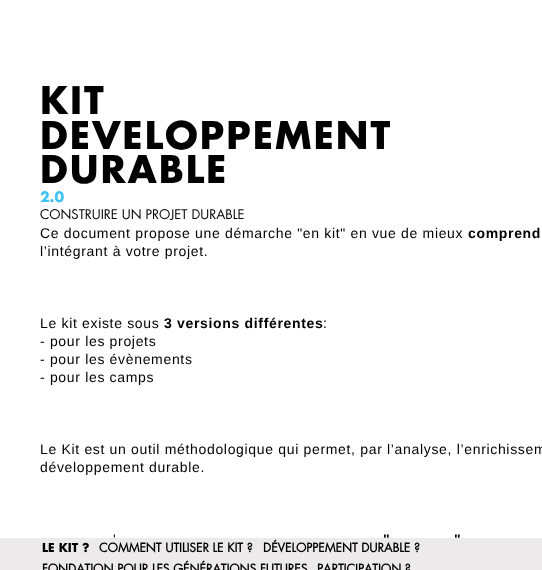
<svg xmlns="http://www.w3.org/2000/svg" width="542" height="570">
<style>
.a{font:bold 37px Futura;letter-spacing:2px;fill:#000}
.b{font:bold 14px Futura;fill:#40c2f4}
.c{font:13px Futura;fill:#000}
.d{font:14px Liberation Sans;letter-spacing:0.67px;fill:#000}
.e{font:bold 14px Liberation Sans;letter-spacing:0.67px;fill:#000}
.f{font:bold 12px Futura;fill:#000}
.g{font:bold 12px 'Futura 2';fill:#000}
</style>
<rect width="100%" height="100%" fill="#fff"/>
<path fill="#eceaeb" d="M0 538h542v32H0z"/>
<text class="a" x="40" y="114">KIT</text>
<text class="a" x="40" y="149">DEVELOPPEMENT</text>
<text class="a" x="40" y="183">DURABLE</text>
<text class="b" x="40" y="202">2.0</text>
<text class="c" x="40" y="219">CONSTRUIRE UN PROJET DURABLE</text>
<text class="d" x="40" y="238">Ce document propose une démarche "en kit" en vue de mieux</text>
<text class="e" x="468" y="238">comprend</text>
<text class="d" x="40" y="256">l’intégrant à votre projet.</text>
<text class="d" x="40" y="328">Le kit existe sous</text>
<text class="e" x="164" y="328">3 versions différentes</text>
<text class="d" x="323" y="328">:</text>
<text class="d" x="40" y="346">- pour les projets</text>
<text class="d" x="40" y="364">- pour les évènements</text>
<text class="d" x="40" y="382">- pour les camps</text>
<text class="d" x="40" y="454">Le Kit est un outil méthodologique qui permet, par l’analyse, l’enrichissem</text>
<text class="d" x="40" y="472">développement durable.</text>
<text class="d" x="113" y="544">'</text>
<text class="e" x="383" y="544">"</text>
<text class="e" x="454" y="544">"</text>
<text class="f" x="42" y="552">LE KIT ?</text>
<text class="g" x="99" y="552">COMMENT UTILISER LE KIT ?</text>
<text class="g" x="263" y="552">DÉVELOPPEMENT DURABLE ?</text>
<text class="g" x="42" y="573">FONDATION POUR LES GÉNÉRATIONS FUTURES</text>
<text class="g" x="317" y="573">PARTICIPATION ?</text>
</svg>
